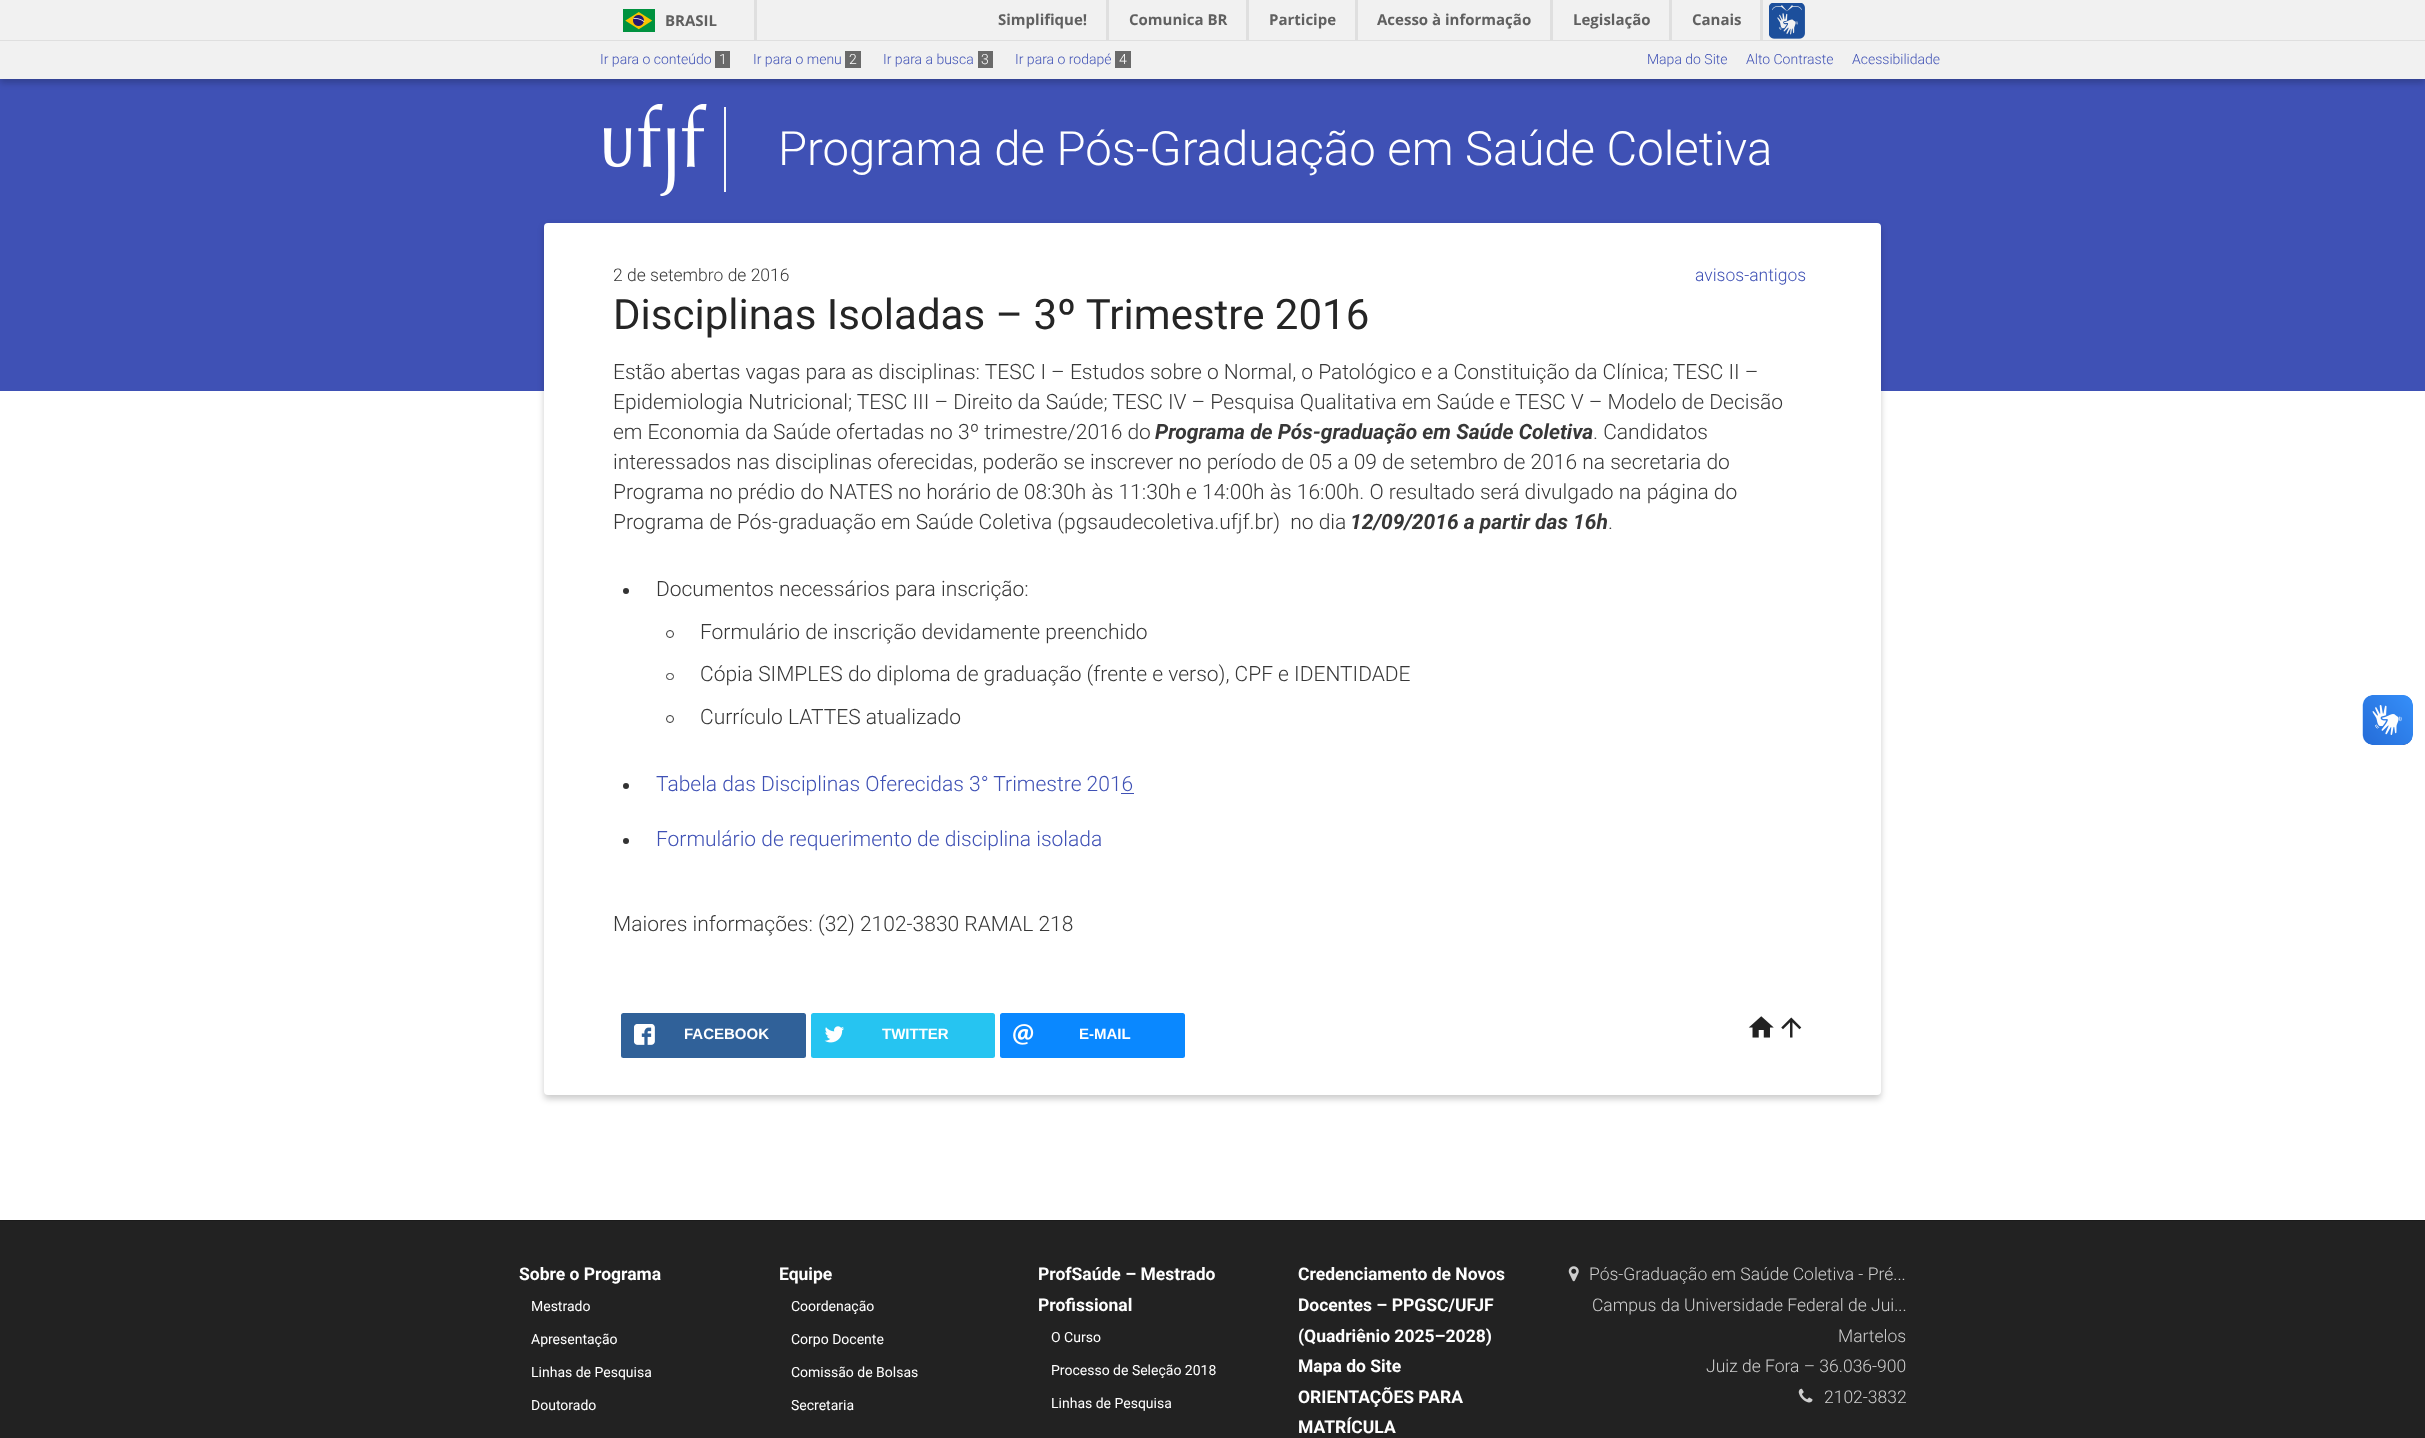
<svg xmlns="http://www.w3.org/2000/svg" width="2425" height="1438">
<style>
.a{font:bold 15px Open Sans;fill:#606060}
.b{font:300 14px Roboto;fill:#3f51b5}
.c{font:300 14px Roboto;fill:#fff}
.d{font:300 47.25px Roboto;fill:#fff}
.e{font:300 17.5px Roboto;fill:#373737}
.f{font:300 17.5px Roboto;fill:#3f51b5}
.g{font:42px Roboto;fill:#252525}
.h{font:300 21px Roboto;fill:#373737}
.i{font:italic bold 21px Roboto;fill:#373737}
.j{font:300 21px Roboto;fill:#3f51b5}
.k{font:bold 15px Liberation Sans;fill:#fff}
.l{font:bold 17.5px Roboto;fill:#fff}
.m{font:14px Roboto;fill:#fff}
.n{font:300 17.5px Roboto;fill:#cecece}
</style>
<rect width="100%" height="100%" fill="#fff"/>
<path fill="#3f51b5" d="M0 79h2425v312H0z"/>
<path fill="#00000033" filter="blur(3px)" d="M0 4h2425v79H0z"/>
<path fill="#f1f1f1" d="M0 0h2425v40H0z"/>
<path fill="#dfdfdf" d="M0 40h2425v1H0z"/>
<path fill="#dfdfdf" d="M754 0h3v40H754z"/>
<image href="1.png" x="623" y="9" width="32" height="23"/>
<path fill="#dfdfdf" d="M1106 0h3v40H1106z"/>
<path fill="#dfdfdf" d="M1246 0h3v40H1246z"/>
<path fill="#dfdfdf" d="M1355 0h3v40H1355z"/>
<path fill="#dfdfdf" d="M1550 0h3v40H1550z"/>
<path fill="#dfdfdf" d="M1669 0h3v40H1669z"/>
<path fill="#dfdfdf" d="M1760 0h3v40H1760z"/>
<image href="2.png" x="1769" y="3" width="36" height="36"/>
<path fill="#f1f1f1" d="M0 41h2425v38H0z"/>
<path fill="#6a6a6a" d="M715 51h15v17H715z"/>
<path fill="#6a6a6a" d="M845 51h16v17H845z"/>
<path fill="#6a6a6a" d="M978 51h15v17H978z"/>
<path fill="#6a6a6a" d="M1115 51h16v17H1115z"/>
<image href="3.png" x="604" y="104" width="122" height="92"/>
<rect fill="#00000033" filter="blur(3px)" x="544" y="226" width="1337" height="873" rx="4"/>
<rect fill="#fff" x="544" y="223" width="1337" height="872" rx="4"/>
<circle fill="#333" cx="626" cy="591" r="3"/>
<circle fill="none" stroke="#333" cx="670" cy="634" r="3.5"/>
<rect fill="none" stroke="#333" x="666.5" y="673.5" width="7" height="6" rx="3"/>
<circle fill="none" stroke="#333" cx="670" cy="719" r="3.5"/>
<circle fill="#333" cx="626" cy="786" r="3"/>
<path fill="#3f51b5" d="M1121 793h13v1H1121z"/>
<circle fill="#333" cx="626" cy="841" r="3"/>
<rect fill="#306199" x="621" y="1013" width="185" height="45" rx="2.5"/>
<image href="4.png" x="634" y="1024" width="21" height="21"/>
<rect fill="#26c4f1" x="811" y="1013" width="184" height="45" rx="2.5"/>
<image href="5.png" x="824" y="1026" width="20" height="17"/>
<rect fill="#0a88ff" x="1000" y="1013" width="185" height="45" rx="2.5"/>
<image href="6.png" x="1013" y="1024" width="21" height="21"/>
<image href="7.png" x="1748" y="1016" width="26" height="22"/>
<image href="8.png" x="1781" y="1017" width="21" height="21"/>
<image href="9.png" x="2362" y="695" width="51" height="50"/>
<image href="10.png" x="2363" y="695" width="50" height="50"/>
<path fill="#222" d="M0 1221h2425v217H0z"/>
<path fill="#1b1b1b" d="M0 1220h2425v1H0z"/>
<image href="11.png" x="1568" y="1266" width="11" height="16"/>
<image href="12.png" x="1798" y="1388" width="15" height="15"/>
<text class="a" x="665" y="26">BRASIL</text>
<text class="a" x="998" y="25">Simplifique!</text>
<text class="a" x="1129" y="25">Comunica BR</text>
<text class="a" x="1269" y="25">Participe</text>
<text class="a" x="1377" y="25">Acesso à informação</text>
<text class="a" x="1573" y="25">Legislação</text>
<text class="a" x="1692" y="25">Canais</text>
<text class="b" x="600" y="64">Ir para o conteúdo</text>
<text class="c" x="719" y="64">1</text>
<text class="b" x="753" y="64">Ir para o menu</text>
<text class="c" x="849" y="64">2</text>
<text class="b" x="883" y="64">Ir para a busca</text>
<text class="c" x="981" y="64">3</text>
<text class="b" x="1015" y="64">Ir para o rodapé</text>
<text class="c" x="1119" y="64">4</text>
<text class="b" x="1647" y="64">Mapa do Site</text>
<text class="b" x="1746" y="64">Alto Contraste</text>
<text class="b" x="1852" y="64">Acessibilidade</text>
<text class="d" x="778" y="165">Programa de Pós-Graduação em Saúde Coletiva</text>
<text class="e" x="613" y="281">2 de setembro de 2016</text>
<text class="f" x="1695" y="281">avisos-antigos</text>
<text class="g" x="613" y="329">Disciplinas Isoladas – 3º Trimestre 2016</text>
<text class="h" x="613" y="379">Estão abertas vagas para as disciplinas: TESC I – Estudos sobre o Normal, o Patológico e a Constituição da Clínica; TESC II –</text>
<text class="h" x="613" y="409">Epidemiologia Nutricional; TESC III – Direito da Saúde; TESC IV – Pesquisa Qualitativa em Saúde e TESC V – Modelo de Decisão</text>
<text class="h" x="613" y="439">em Economia da Saúde ofertadas no 3º trimestre/2016 do</text>
<text class="i" x="1155" y="439">Programa de Pós-graduação em Saúde Coletiva</text>
<text class="h" x="1593" y="439">. Candidatos</text>
<text class="h" x="613" y="469">interessados nas disciplinas oferecidas, poderão se inscrever no período de 05 a 09 de setembro de 2016 na secretaria do</text>
<text class="h" x="613" y="499">Programa no prédio do NATES no horário de 08:30h às 11:30h e 14:00h às 16:00h. O resultado será divulgado na página do</text>
<text class="h" xml:space="preserve" x="613" y="529">Programa de Pós-graduação em Saúde Coletiva (pgsaudecoletiva.ufjf.br)  no dia</text>
<text class="i" x="1350" y="529">12/09/2016 a partir das 16h</text>
<text class="h" x="1608" y="529">.</text>
<text class="h" x="656" y="596">Documentos necessários para inscrição:</text>
<text class="h" x="700" y="639">Formulário de inscrição devidamente preenchido</text>
<text class="h" x="700" y="681">Cópia SIMPLES do diploma de graduação (frente e verso), CPF e IDENTIDADE</text>
<text class="h" x="700" y="724">Currículo LATTES atualizado</text>
<text class="j" x="656" y="791">Tabela das Disciplinas Oferecidas 3° Trimestre 2016</text>
<text class="j" x="656" y="846">Formulário de requerimento de disciplina isolada</text>
<text class="h" x="613" y="931">Maiores informações: (32) 2102-3830 RAMAL 218</text>
<text class="k" x="684" y="1039">FACEBOOK</text>
<text class="k" x="882" y="1039">TWITTER</text>
<text class="k" x="1079" y="1039">E-MAIL</text>
<text class="l" x="519" y="1280">Sobre o Programa</text>
<text class="m" x="531" y="1311">Mestrado</text>
<text class="m" x="531" y="1344">Apresentação</text>
<text class="m" x="531" y="1377">Linhas de Pesquisa</text>
<text class="m" x="531" y="1410">Doutorado</text>
<text class="l" x="779" y="1280">Equipe</text>
<text class="m" x="791" y="1311">Coordenação</text>
<text class="m" x="791" y="1344">Corpo Docente</text>
<text class="m" x="791" y="1377">Comissão de Bolsas</text>
<text class="m" x="791" y="1410">Secretaria</text>
<text class="l" x="1038" y="1280">ProfSaúde – Mestrado</text>
<text class="l" x="1038" y="1311">Profissional</text>
<text class="m" x="1051" y="1342">O Curso</text>
<text class="m" x="1051" y="1375">Processo de Seleção 2018</text>
<text class="m" x="1051" y="1408">Linhas de Pesquisa</text>
<text class="l" x="1298" y="1280">Credenciamento de Novos</text>
<text class="l" x="1298" y="1311">Docentes – PPGSC/UFJF</text>
<text class="l" x="1298" y="1342">(Quadriênio 2025–2028)</text>
<text class="l" x="1298" y="1372">Mapa do Site</text>
<text class="l" x="1298" y="1403">ORIENTAÇÕES PARA</text>
<text class="l" x="1298" y="1433">MATRÍCULA</text>
<text class="n" x="1589" y="1280">Pós-Graduação em Saúde Coletiva - Pré...</text>
<text class="n" x="1592" y="1311">Campus da Universidade Federal de Jui...</text>
<text class="n" x="1838" y="1342">Martelos</text>
<text class="n" x="1706" y="1372">Juiz de Fora – 36.036-900</text>
<text class="n" x="1824" y="1403">2102-3832</text>
</svg>
